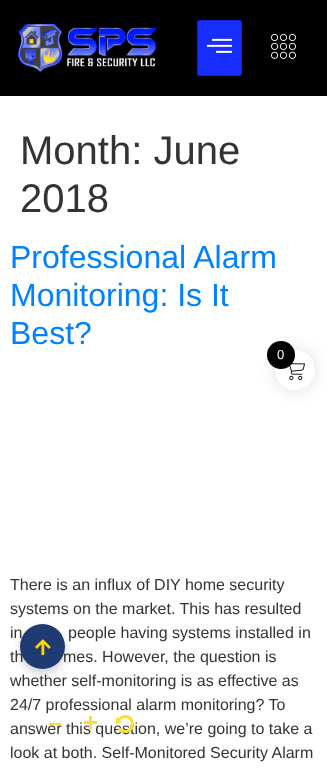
<svg xmlns="http://www.w3.org/2000/svg" width="327" height="769">
<style>
.a{font:40px Liberation Sans;fill:#333}
.b{font:32px Liberation Sans;fill:#0082ff}
.c{font:16px Liberation Sans;fill:#333}
.d{font:13px Liberation Sans;fill:#fff}
</style>
<rect width="100%" height="100%" fill="#fff"/>
<path fill="#000" d="M0 0h327v96H0z"/>
<image href="1.png" x="18" y="24" width="139" height="48"/>
<rect fill="#172efe" x="197" y="20" width="45" height="56" rx="3"/>
<rect fill="none" stroke="#00000033" x="197.5" y="20.5" width="44" height="55" rx="2.5"/>
<image href="2.png" x="207" y="38" width="25" height="15"/>
<image href="3.png" x="271" y="33" width="25" height="26"/>
<rect fill="#00000033" filter="blur(4px)" x="20" y="628" width="45" height="45" rx="22.5"/>
<rect fill="#0000001a" filter="blur(7.5px)" x="273" y="348" width="44" height="44" rx="22"/>
<circle fill="#fff" cx="295" cy="370" r="20"/>
<image href="5.png" x="289" y="363" width="16" height="17"/>
<circle fill="#000" cx="281" cy="355" r="14"/>
<text class="a" x="20" y="164">Month: June</text>
<text class="a" x="20" y="212">2018</text>
<text class="b" x="10" y="268">Professional Alarm</text>
<text class="b" x="10" y="306">Monitoring: Is It</text>
<text class="b" x="10" y="344">Best?</text>
<text class="c" x="10" y="590">There is an influx of DIY home security</text>
<text class="c" x="10" y="614">systems on the market. This has resulted</text>
<text class="c" x="10" y="638">in</text>
<text class="c" x="68" y="638">people having systems installed in</text>
<text class="c" x="10" y="662">th</text>
<text class="c" x="63" y="662">mes. However, the question is</text>
<text class="c" x="10" y="686">whether self-monitoring is as effective as</text>
<text class="c" x="10" y="710">24/7 professional alarm monitoring? To</text>
<text class="c" x="10" y="734">answer this question, we’re going to take a</text>
<text class="c" x="10" y="758">look at both. Self-Monitored Security Alarm</text>
<circle fill="#1e3c72" cx="42.5" cy="646.5" r="22.5"/>
<image href="4.png" x="35" y="639" width="16" height="17"/>
<text class="d" x="277" y="359">0</text>
<path fill="#fbdd35" d="M49 723h12v2H49z"/>
<image href="6.png" x="84" y="716" width="13" height="13"/>
<image href="7.png" x="116" y="715" width="18" height="18"/>
</svg>
